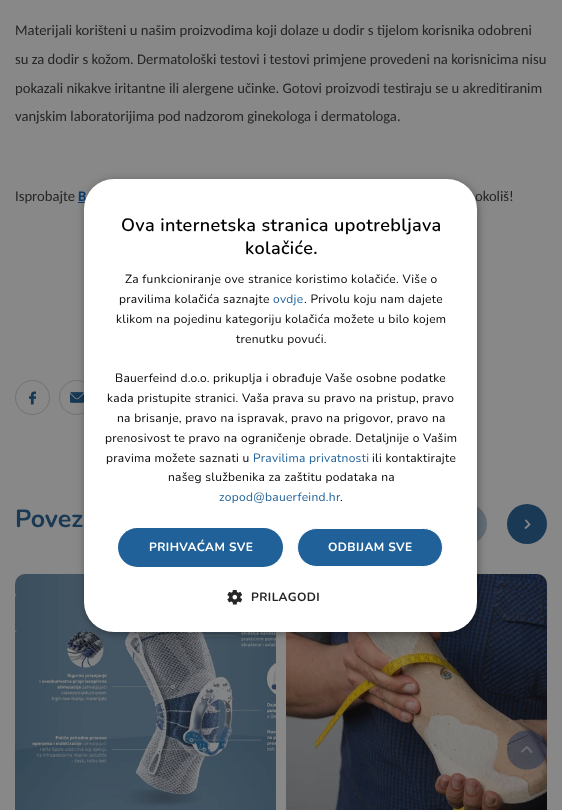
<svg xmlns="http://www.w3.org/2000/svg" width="562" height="810">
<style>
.a{font:14.65px Carlito;fill:#252525}
.b{font:bold 14.65px Carlito;fill:#0b3a69}
.c{font:bold 25px Nunito;fill:#193955}
.d{font:600 18px Nunito;letter-spacing:0.4px;fill:#000}
.e{font:12px Nunito;letter-spacing:0.3px;fill:#000}
.f{font:12px Nunito;letter-spacing:0.3px;fill:#206199}
.g{font:bold 12px Nunito;letter-spacing:0.4px;fill:#fff}
.h{font:bold 12px Nunito;letter-spacing:0.4px;fill:#252525}
</style>
<rect width="100%" height="100%" fill="#888"/>
<path fill="#0b3a69" d="M78 202h7v1H78z"/>
<circle fill="none" stroke="#737373" cx="32.5" cy="397.5" r="17"/>
<image href="1.png" x="29" y="391" width="7" height="14"/>
<circle fill="none" stroke="#737373" cx="76.5" cy="397.5" r="17"/>
<image href="2.png" x="70" y="392" width="14" height="11"/>
<circle fill="#616d76" cx="467" cy="524" r="20"/>
<circle fill="#193955" cx="527" cy="524" r="20"/>
<path fill="none" stroke="#888" stroke-width="1.8" stroke-linecap="round" stroke-linejoin="round" d="M526 520.5l3.5 4l-4 3.5"/>
<image href="3.png" x="15" y="574" width="261" height="236"/>
<image href="4.png" x="286" y="574" width="261" height="236"/>
<rect fill="#00000059" filter="blur(4px)" x="85" y="181" width="393" height="453" rx="30"/>
<path fill="#12285070" d="M507 750c0-26 40-26 40 0c0 26-40 26-40 0z"/>
<path fill="none" stroke="#88888880" stroke-width="2.2" stroke-linecap="round" stroke-linejoin="round" d="M522 751.5l5-4.5l4.5 5"/>
<text class="a" x="15" y="35">Materijali korišteni u našim proizvodima koji dolaze u dodir s tijelom korisnika odobreni</text>
<text class="a" x="15" y="64">su za dodir s kožom. Dermatološki testovi i testovi primjene provedeni na korisnicima nisu</text>
<text class="a" x="15" y="93">pokazali nikakve iritantne ili alergene učinke. Gotovi proizvodi testiraju se u akreditiranim</text>
<text class="a" x="15" y="121">vanjskim laboratorijima pod nadzorom ginekologa i dermatologa.</text>
<text class="a" x="15" y="201">Isprobajte</text>
<text class="b" x="78" y="201">B</text>
<text class="a" x="475" y="201">okoliš!</text>
<text class="c" x="15" y="527">Povez</text>
<rect fill="#fff" x="84" y="179" width="393" height="453" rx="30"/>
<text class="d" x="121" y="231">Ova internetska stranica upotrebljava</text>
<text class="d" x="245" y="254">kolačiće.</text>
<text class="e" x="125" y="283">Za funkcioniranje ove stranice koristimo kolačiće. Više o</text>
<text class="e" x="119" y="303">pravilima kolačića saznajte</text>
<text class="f" x="273" y="303">ovdje</text>
<text class="e" x="304" y="303">. Privolu koju nam dajete</text>
<text class="e" x="116" y="323">klikom na pojedinu kategoriju kolačića možete u bilo kojem</text>
<text class="e" x="236" y="343">trenutku povući.</text>
<text class="e" x="115" y="382">Bauerfeind d.o.o. prikuplja i obrađuje Vaše osobne podatke</text>
<text class="e" x="107" y="402">kada pristupite stranici. Vaša prava su pravo na pristup, pravo</text>
<text class="e" x="117" y="422">na brisanje, pravo na ispravak, pravo na prigovor, pravo na</text>
<text class="e" x="105" y="442">prenosivost te pravo na ograničenje obrade. Detaljnije o Vašim</text>
<text class="e" x="106" y="462">pravima možete saznati u</text>
<text class="f" x="253" y="462">Pravilima privatnosti</text>
<text class="e" x="372" y="462">ili kontaktirajte</text>
<text class="e" x="168" y="481">našeg službenika za zaštitu podataka na</text>
<text class="f" x="219" y="501">zopod@bauerfeind.hr</text>
<text class="e" x="340" y="501">.</text>
<rect fill="#206199" x="118" y="528" width="165" height="39" rx="19.5"/>
<text class="g" x="149" y="551">PRIHVAĆAM SVE</text>
<rect fill="#206199" stroke="#fff" x="297.5" y="528.5" width="145" height="38" rx="19"/>
<text class="g" x="328" y="551">ODBIJAM SVE</text>
<image href="5.png" x="227" y="590" width="15" height="15"/>
<text class="h" x="251" y="601">PRILAGODI</text>
</svg>
